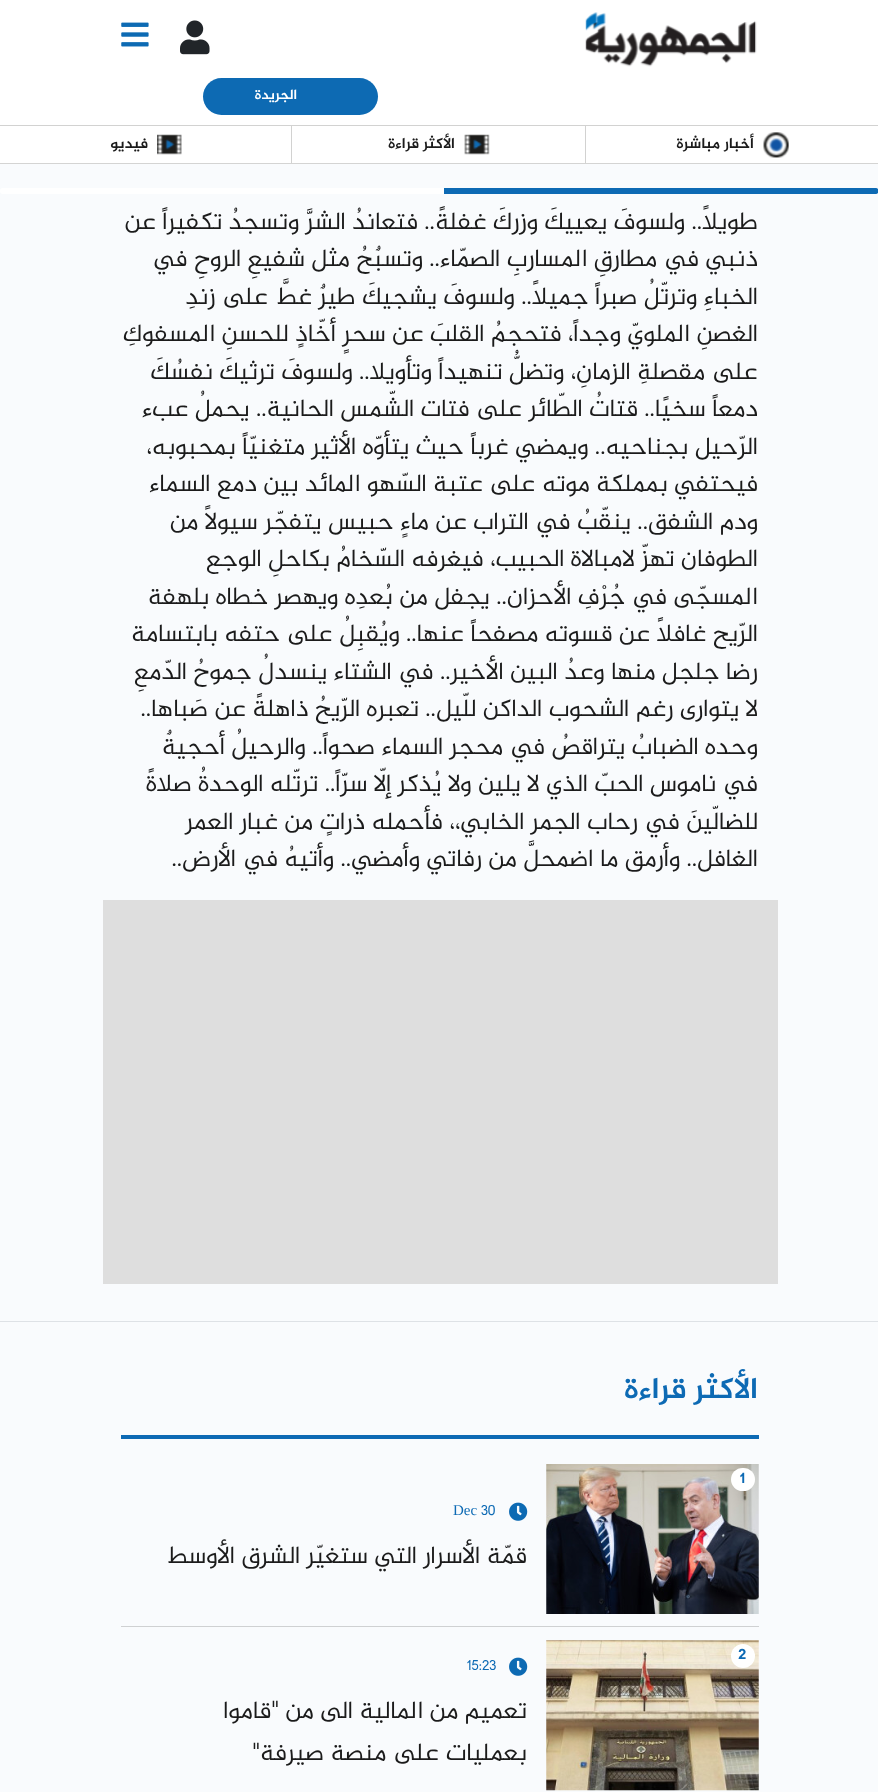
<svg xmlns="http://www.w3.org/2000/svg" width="878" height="1792">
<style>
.a{font:bold 14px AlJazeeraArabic;direction:rtl;fill:#fff}
.b{font:bold 15px AlJazeeraArabic;direction:rtl;fill:#1b1b1b}
.c{font:25px AlJazeeraArabic;direction:rtl;fill:#1b1b1b}
.d{font:bold 30px AlJazeeraArabic;direction:rtl;fill:#0d6ab4}
.e{font:bold 15px AlJazeeraArabic;fill:#0d6ab4}
.f{font:15px AlJazeeraArabic;fill:#0d6ab4}
.g{font:15px Liberation Serif;fill:#0d6ab4}
</style>
<rect width="100%" height="100%" fill="#f9fbfd"/>
<path fill="#d4d4d3" d="M0 163h878v1H0z"/>
<path fill="#fff" d="M0 0h878v125H0z"/>
<image href="1.png" x="585" y="12" width="172" height="55"/>
<image href="2.png" x="180" y="20" width="30" height="35"/>
<image href="3.png" x="121" y="22" width="28" height="25"/>
<rect fill="#0d6ab3" x="203" y="78" width="175" height="37" rx="18.5"/>
<path fill="#fff" d="M0 126h878v37H0z"/>
<path fill="#d2d2d1" d="M0 125h878v1H0z"/>
<image href="4.png" x="763" y="132" width="26" height="26"/>
<path fill="#d2d2d1" d="M585 126h1v37H585z"/>
<image href="5.png" x="464" y="134" width="26" height="21"/>
<path fill="#d2d2d1" d="M291 126h1v37H291z"/>
<image href="6.png" x="157" y="134" width="25" height="21"/>
<rect fill="#fff" y="188" width="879" height="6" rx="3"/>
<path fill="#0d6ab4" d="M444 188h432c1.5 0 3 1.5 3 3c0 1.5-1.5 3-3 3h-432z"/>
<path fill="#dedede" d="M103 900h675v384H103z"/>
<path fill="#dee2e6" d="M0 1321h878v1H0z"/>
<path fill="#0d6ab4" d="M121 1435h638v4H121z"/>
<path fill="#cfd1d2" d="M121 1626h638v1H121z"/>
<image href="7.png" x="546" y="1464" width="213" height="150"/>
<rect fill="#fff" x="731" y="1468" width="24" height="23" rx="11.5"/>
<image href="8.png" x="509" y="1502" width="19" height="19"/>
<image href="9.png" x="546" y="1640" width="213" height="151"/>
<circle fill="#fff" cx="743" cy="1656" r="12"/>
<image href="8.png" x="509" y="1657" width="19" height="19"/>
<text class="a" x="297" y="99">الجريدة</text>
<text class="b" x="754" y="148">أخبار مباشرة</text>
<text class="b" x="455" y="148">الأكثر قراءة</text>
<text class="b" x="148" y="148">فيديو</text>
<text class="c" x="758" y="229">طويلاً.. ولسوفَ يعييكَ وزركَ غفلةً.. فتعاندُ الشرَّ وتسجدُ تكفيراً عن</text>
<text class="c" x="758" y="266">ذنبي في مطارقِ المساربِ الصمّاء.. وتسبٌحُ مثل شفيعِ الروحِ في</text>
<text class="c" x="758" y="304">الخباءِ وترتّلُ صبراً جميلاً.. ولسوفَ يشجيكَ طيرٌ غطَّ على زندِ</text>
<text class="c" x="758" y="341">الغصنِ الملويّ وجداً، فتحجمُ القلبَ عن سحرٍ أخّاذٍ للحسنِ المسفوكِ</text>
<text class="c" x="758" y="379">على مقصلةِ الزمانِ، وتضلُّ تنهيداً وتأويلا.. ولسوفَ ترثيكَ نفسُكَ</text>
<text class="c" x="758" y="416">دمعاً سخيًا.. قتاتُ الطّائر على فتات الشّمس الحانية.. يحملُ عبء</text>
<text class="c" x="758" y="454">الرّحيل بجناحيه.. ويمضي غرباً حيث يتأوّه الأثير متغنيّاً بمحبوبه،</text>
<text class="c" x="758" y="491">فيحتفي بمملكة موته على عتبة السّهو المائد بين دمع السماء</text>
<text class="c" x="758" y="529">ودم الشفق.. ينقّبُ في التراب عن ماءٍ حبيس يتفجّر سيولاً من</text>
<text class="c" x="758" y="566">الطوفان تهزّ لامبالاة الحبيب، فيغرفه السّخامُ بكاحلِ الوجع</text>
<text class="c" x="758" y="604">المسجّى في جُرْفِ الأحزان.. يجفل من بُعدِه ويهصر خطاه بلهفة</text>
<text class="c" x="758" y="641">الرّيح غافلاً عن قسوته مصفحاً عنها.. ويُقبِلُ على حتفه بابتسامة</text>
<text class="c" x="758" y="679">رضا جلجل منها وعدُ البين الأخير.. في الشتاء ينسدلُ جموحُ الدّمعِ</text>
<text class="c" x="758" y="716">لا يتوارى رغم الشحوب الداكن للّيل.. تعبره الرّيحُ ذاهلةً عن صَباها..</text>
<text class="c" x="758" y="754">وحده الضبابُ يتراقصُ في محجر السماء صحواً.. والرحيلُ أحجيةٌ</text>
<text class="c" x="758" y="791">في ناموس الحبّ الذي لا يلين ولا يُذكر إلّا سرّاً.. ترتّله الوحدةُ صلاةً</text>
<text class="c" x="758" y="829">للضالّينَ في رحاب الجمر الخابي،، فأحمله ذراتٍ من غبار العمر</text>
<text class="c" x="758" y="866">الغافل.. وأرمق ما اضمحلَّ من رفاتي وأمضي.. وأتيهُ في الأرض..</text>
<text class="d" x="758" y="1398">الأكثر قراءة</text>
<text class="e" x="740" y="1483">1</text>
<text class="f" x="481" y="1515">30</text>
<text class="g" x="453" y="1515">Dec</text>
<text class="c" x="527" y="1563">قمّة الأسرار التي ستغيّر الشرق الأوسط</text>
<text class="e" x="738" y="1659">2</text>
<text class="f" x="467" y="1670">15:23</text>
<text class="c" x="527" y="1718">تعميم من المالية الى من "قاموا</text>
<text class="c" x="527" y="1760">بعمليات على منصة صيرفة"</text>
</svg>
